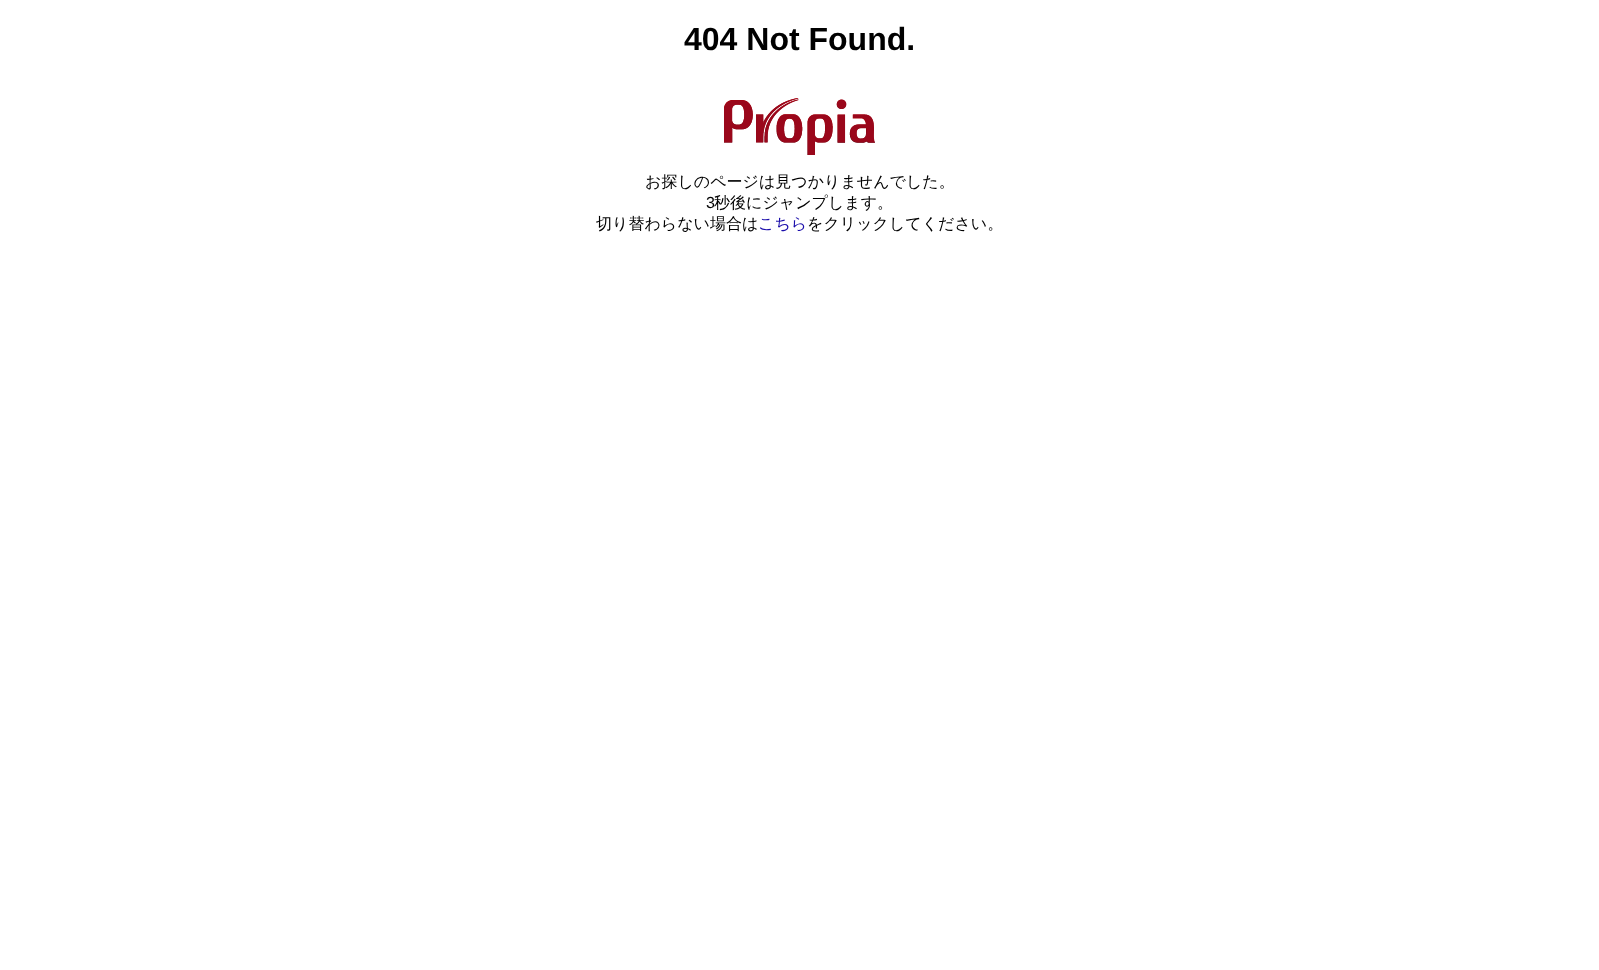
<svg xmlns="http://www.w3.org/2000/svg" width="1599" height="970">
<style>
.a{font:bold 32px Liberation Sans;fill:#000}
.b{font:500 16px WenQuanYi Zen Hei;fill:#000}
.c{font:16px Liberation Sans;fill:#000}
.d{font:500 16px WenQuanYi Zen Hei;fill:#1a0dab}
</style>
<rect width="100%" height="100%" fill="#fff"/>
<image href="1.png" x="724" y="98" width="151" height="57"/>
<text class="a" x="684" y="50">404 Not Found.</text>
<text class="b" x="645" y="187">お探しのページは見つかりませんでした。</text>
<text class="c" x="706" y="208">3</text>
<text class="b" x="714" y="208">秒後にジャンプします。</text>
<text class="b" x="596" y="229">切り替わらない場合は</text>
<text class="d" x="758" y="229">こちら</text>
<text class="b" x="807" y="229">をクリックしてください。</text>
</svg>
